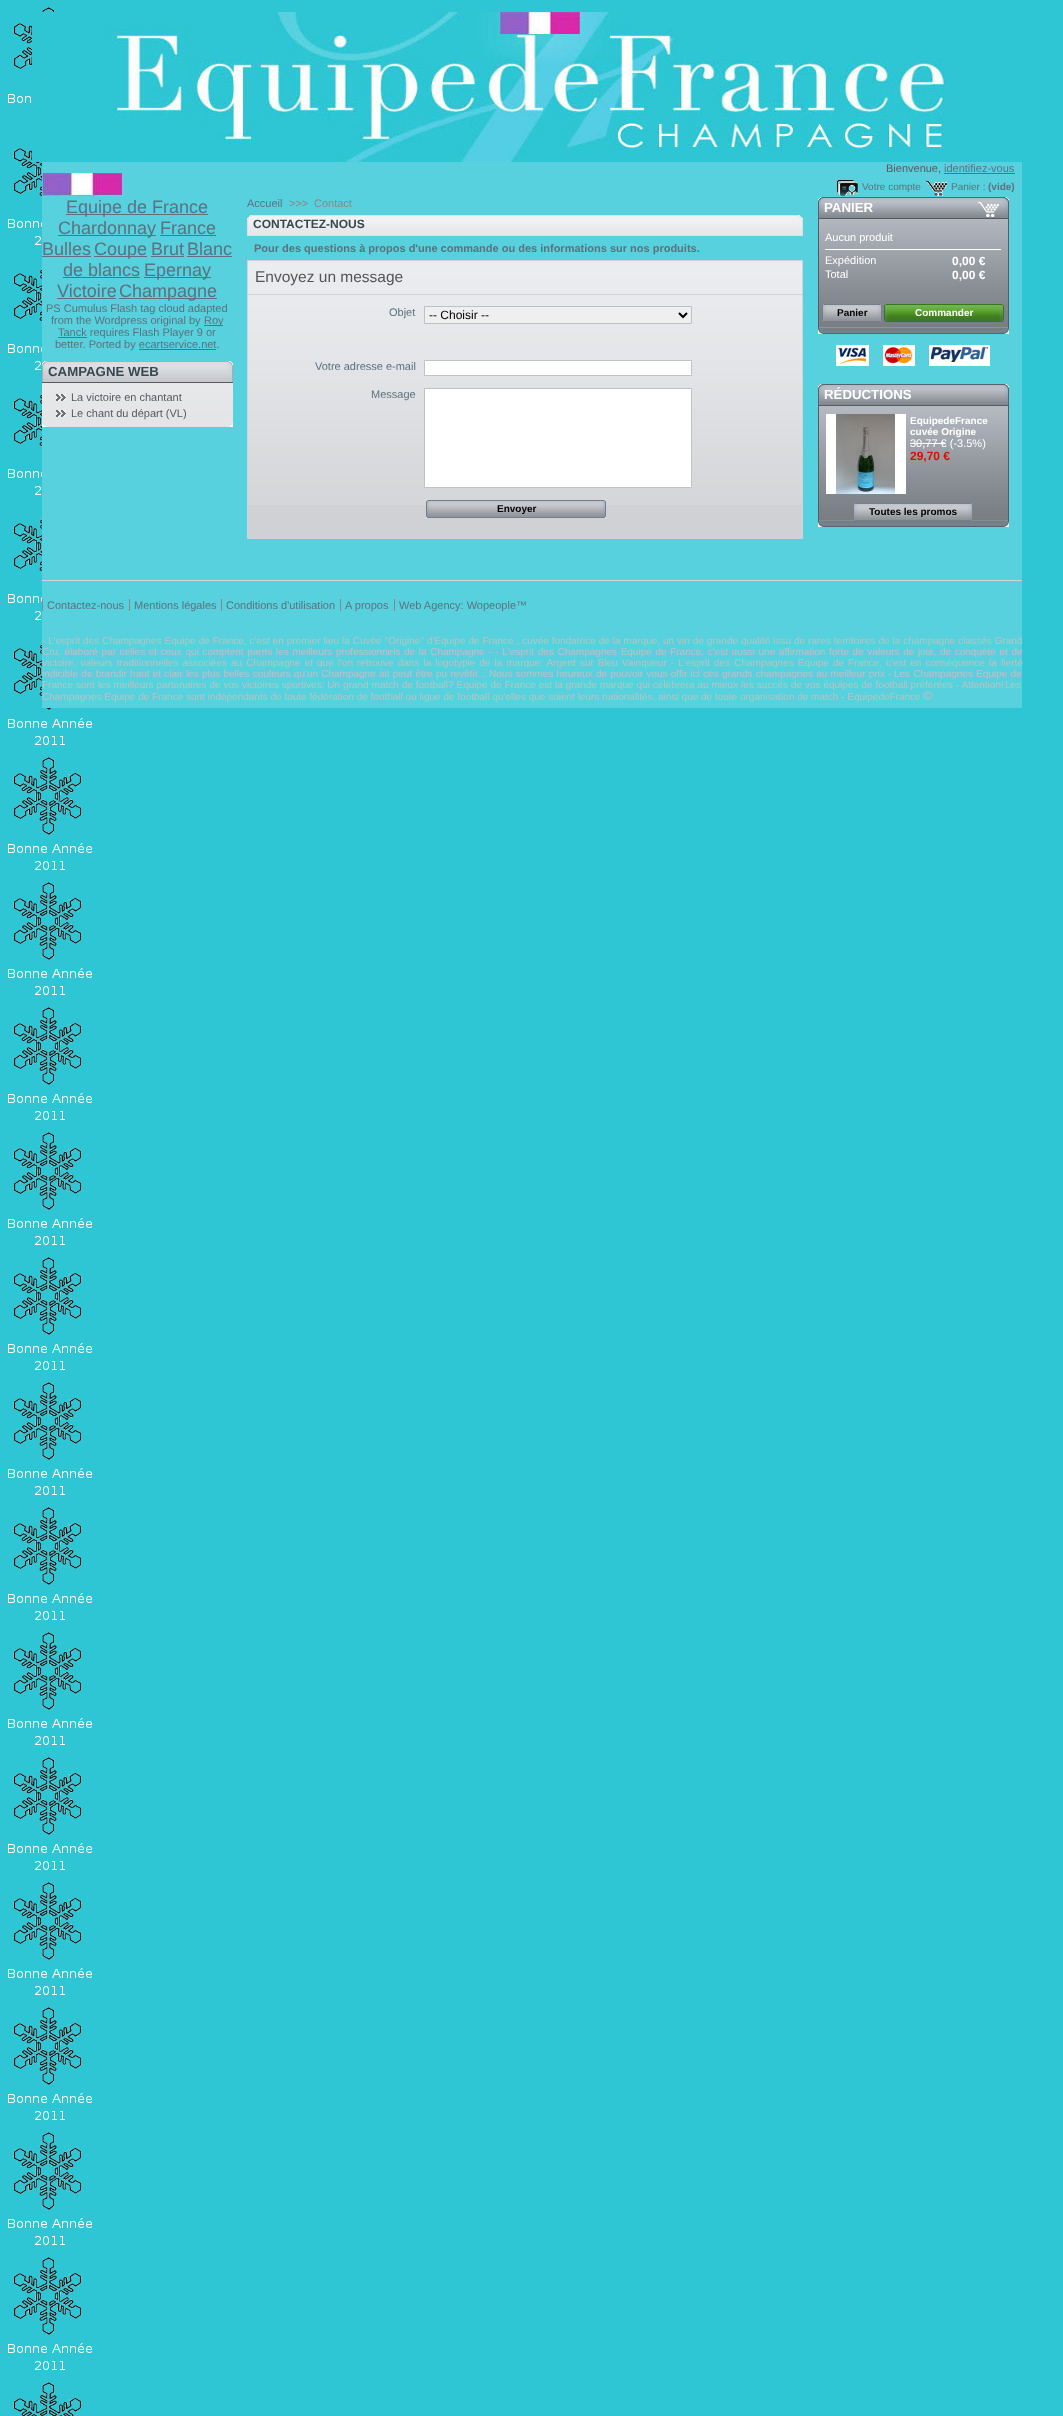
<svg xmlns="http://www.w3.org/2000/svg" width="1063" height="2416">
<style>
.a{font:11px Liberation Sans;fill:#595a5e}
.b{font:11px Liberation Sans;fill:#5d717e}
.c{font:10px Liberation Sans;fill:#5d717e}
.d{font:bold 10px Liberation Sans;fill:#5d717e}
.e{font:18px Liberation Sans;fill:#5d717e}
.f{font:bold 13.25px Liberation Sans;fill:#374853}
.g{font:11px Liberation Sans;fill:#888}
.h{font:bold 12px Liberation Sans;fill:#374853}
.i{font:bold 11px Liberation Sans;fill:#5d717e}
.j{font:15.5px Liberation Sans;fill:#555}
.k{font:12px Liberation Sans;fill:#000}
.l{font:bold 10px Liberation Sans;fill:#000}
.m{font:bold 13.25px Liberation Sans;fill:#fff}
.n{font:11px Liberation Sans;fill:#fff}
.o{font:bold 12px Liberation Sans;fill:#fff}
.p{font:bold 10px Liberation Sans;fill:#fff}
.q{font:bold 12px Liberation Sans;fill:#da0f00}
.r{font:10px Liberation Sans;fill:#c0c0c0}
.s{font:13px Liberation Sans;fill:#c0c0c0}
</style>
<rect width="100%" height="100%" fill="#2ec6d4"/>
<image href="1.png" x="8" y="7" width="84" height="2409"/>
<image href="2.png" x="32" y="12" width="914" height="150"/>
<path fill="#57d1de" d="M42 162h980v546H42z"/>
<image href="3.png" x="42" y="173" width="81" height="23"/>
<path fill="#5d717e" d="M944 173h71v1H944z"/>
<image href="4.png" x="837" y="180" width="21" height="16"/>
<image href="5.png" x="926" y="181" width="21" height="15"/>
<path fill="#5d717e" d="M66 214h142v1H66z"/>
<path fill="#5d717e" d="M58 235h98v1H58z"/>
<path fill="#5d717e" d="M160 235h56v1H160z"/>
<path fill="#5d717e" d="M42 256h49v1H42z"/>
<path fill="#5d717e" d="M94 256h53v1H94z"/>
<path fill="#5d717e" d="M151 256h33v1H151z"/>
<path fill="#5d717e" d="M187 256h45v1H187z"/>
<path fill="#5d717e" d="M63 277h77v1H63z"/>
<path fill="#5d717e" d="M144 277h67v1H144z"/>
<path fill="#5d717e" d="M57 298h59v1H57z"/>
<path fill="#5d717e" d="M119 298h98v1H119z"/>
<path fill="#5d717e" d="M204 325h19v1H204z"/>
<path fill="#5d717e" d="M58 337h29v1H58z"/>
<path fill="#5d717e" d="M139 349h77v1H139z"/>
<image href="6.png" x="42" y="421" width="191" height="6"/>
<image href="7.png" x="42" y="361" width="191" height="21"/>
<path fill="#595a5e" d="M42 382h191v1H42z"/>
<image href="8.png" x="42" y="383" width="191" height="38"/>
<image href="9.png" x="56" y="394" width="10" height="7"/>
<image href="9.png" x="56" y="410" width="10" height="7"/>
<image href="10.png" x="247" y="215" width="556" height="21"/>
<path fill="#d0d1d5" d="M248 505h554v33H248z"/>
<image href="11.png" x="248" y="261" width="554" height="244"/>
<path fill="none" stroke="#d0d3d8" d="M247.5 260.5h555v278H247.5z"/>
<path fill="#d0d1d5" d="M248 294h554v1H248z"/>
<path fill="#efefef" stroke="#bdc2c9" d="M424.5 306.5h267v17H424.5z"/>
<path fill="none" stroke="#000" stroke-width="2" d="M679 313l4 4l4-4"/>
<path fill="#fff" stroke="#bdc2c9" d="M424.5 360.5h267v15H424.5z"/>
<path fill="#fff" stroke="#bdc2c9" d="M424.5 388.5h267v99H424.5z"/>
<path fill="#efefef" d="M426 500h180v18H426z"/>
<image href="12.png" x="426" y="500" width="180" height="18"/>
<image href="13.png" x="818" y="328" width="191" height="6"/>
<image href="14.png" x="818" y="197" width="191" height="21"/>
<path fill="#595a5e" d="M818 218h191v1H818z"/>
<image href="15.png" x="819" y="219" width="189" height="109"/>
<path fill="#595a5e" d="M1008 219h1v109H1008z"/>
<path fill="#595a5e" d="M818 219h1v109H818z"/>
<path fill="#fff" d="M825 249h176v1H825z"/>
<image href="16.png" x="822" y="304" width="60" height="18"/>
<image href="17.png" x="884" y="304" width="120" height="18"/>
<image href="18.png" x="836" y="345" width="33" height="21"/>
<image href="19.png" x="883" y="345" width="32" height="21"/>
<image href="20.png" x="929" y="345" width="61" height="21"/>
<image href="13.png" x="818" y="521" width="191" height="6"/>
<image href="21.png" x="818" y="384" width="191" height="21"/>
<path fill="#595a5e" d="M818 405h191v1H818z"/>
<image href="22.png" x="819" y="406" width="189" height="115"/>
<path fill="#595a5e" d="M1008 406h1v115H1008z"/>
<path fill="#595a5e" d="M818 406h1v115H818z"/>
<image href="23.png" x="826" y="414" width="80" height="80"/>
<path fill="#fff" d="M910 443h36v1H910z"/>
<image href="24.png" x="853" y="503" width="120" height="18"/>
<path fill="#d0d3d8" d="M42 580h980v1H42z"/>
<path fill="#888" d="M42 599h1v12H42z"/>
<path fill="#888" d="M129 599h1v12H129z"/>
<path fill="#888" d="M221 599h1v12H221z"/>
<path fill="#888" d="M340 599h1v12H340z"/>
<path fill="#888" d="M394 599h1v12H394z"/>
<text class="a" x="886" y="172">Bienvenue,</text>
<text class="b" x="944" y="172">identifiez-vous</text>
<text class="c" x="862" y="190">Votre compte</text>
<text class="c" x="951" y="190">Panier :</text>
<text class="d" x="988" y="190">(vide)</text>
<text class="e" x="66" y="213">Equipe de France</text>
<text class="e" x="58" y="234">Chardonnay</text>
<text class="e" x="160" y="234">France</text>
<text class="e" x="42" y="255">Bulles</text>
<text class="e" x="94" y="255">Coupe</text>
<text class="e" x="151" y="255">Brut</text>
<text class="e" x="187" y="255">Blanc</text>
<text class="e" x="63" y="276">de blancs</text>
<text class="e" x="144" y="276">Epernay</text>
<text class="e" x="57" y="297">Victoire</text>
<text class="e" x="119" y="297">Champagne</text>
<text class="b" x="46" y="312">PS Cumulus Flash tag cloud adapted</text>
<text class="b" x="51" y="324">from the Wordpress original by</text>
<text class="b" x="204" y="324">Roy</text>
<text class="b" x="58" y="336">Tanck requires Flash Player 9 or</text>
<text class="b" x="55" y="348">better. Ported by ecartservice.net.</text>
<text class="f" x="48" y="376">CAMPAGNE WEB</text>
<text class="a" x="71" y="401">La victoire en chantant</text>
<text class="a" x="71" y="417">Le chant du départ (VL)</text>
<text class="b" x="247" y="207">Accueil</text>
<text class="g" x="289" y="207">&gt;&gt;&gt;</text>
<text class="g" x="314" y="207">Contact</text>
<text class="h" x="253" y="228">CONTACTEZ-NOUS</text>
<text class="i" x="254" y="252">Pour des questions à propos d'une commande ou des informations sur nos produits.</text>
<text class="j" x="255" y="282">Envoyez un message</text>
<text class="b" x="389" y="316">Objet</text>
<text class="k" x="429" y="319">-- Choisir --</text>
<text class="b" x="315" y="370">Votre adresse e-mail</text>
<text class="b" x="371" y="398">Message</text>
<text class="l" x="497" y="512">Envoyer</text>
<text class="m" x="824" y="212">PANIER</text>
<text class="n" x="825" y="241">Aucun produit</text>
<text class="n" x="825" y="264">Expédition</text>
<text class="o" x="952" y="265">0,00 €</text>
<text class="n" x="825" y="278">Total</text>
<text class="o" x="952" y="279">0,00 €</text>
<text class="l" x="837" y="316">Panier</text>
<text class="p" x="915" y="316">Commander</text>
<text class="m" x="824" y="399">RÉDUCTIONS</text>
<text class="p" x="910" y="424">EquipedeFrance</text>
<text class="p" x="910" y="435">cuvée Origine</text>
<text class="n" x="910" y="447">30,77 € (-3.5%)</text>
<text class="q" x="910" y="460">29,70 €</text>
<text class="l" x="869" y="515">Toutes les promos</text>
<text class="b" x="47" y="609">Contactez-nous</text>
<text class="b" x="134" y="609">Mentions légales</text>
<text class="b" x="226" y="609">Conditions d'utilisation</text>
<text class="b" x="345" y="609">A propos</text>
<text class="b" x="399" y="609">Web Agency: Wopeople™</text>
<text class="r" x="42" y="644" word-spacing="0.15">- L'esprit des Champagnes Equipe de France, c'est en premier lieu la Cuvée "Origine" d'Equipe de France , cuvée fondatrice de la marque, un vin de grande qualité issu de rares territoires de la champagne classés Grand</text>
<text class="r" x="42" y="655" word-spacing="0.85">Cru, élaboré par celles et ceux qui comptent parmi les meilleurs professionnels de la Champagne - - L'esprit des Champagnes Equipe de France, c'est aussi une affirmation forte de valeurs de joie, de conquète et de</text>
<text class="r" x="42" y="666" word-spacing="1.25">victoire, valeurs traditionnelles associées au Champagne et que l'on retrouve dans la logotypie de la marque: Argent sur Bleu Vainqueur - L'esprit des Champagnes Equipe de France, c'est en conséquence la fierté</text>
<text class="r" x="42" y="677" word-spacing="0.45">indicible de brandir haut et clair les plus belles couleurs qu'un Champagne ait peut être pu revêtir... Nous sommes heureux de pouvoir vous offir ici ces grands champagnes au meilleur prix -</text>
<text class="r" x="894" y="677" word-spacing="0.5">Les Champagnes Equipe de</text>
<text class="r" x="42" y="688" word-spacing="0.15">France sont les meilleurs partenaires de vos victoires sportives: Un grand match de football? Equipe de France est la grande marque qui célèbrera au mieux les succès de vos équipes de football préférées - Attention!</text>
<text class="r" x="1005" y="688">Les</text>
<text class="r" x="42" y="700">Champagnes Equipe de France sont indépendants de toute fédération de football ou ligue de football qu'elles que soient leurs nationalités, ainsi que de toute organisation de match - EquipedeFrance</text>
<text class="s" x="923" y="700">©</text>
</svg>
